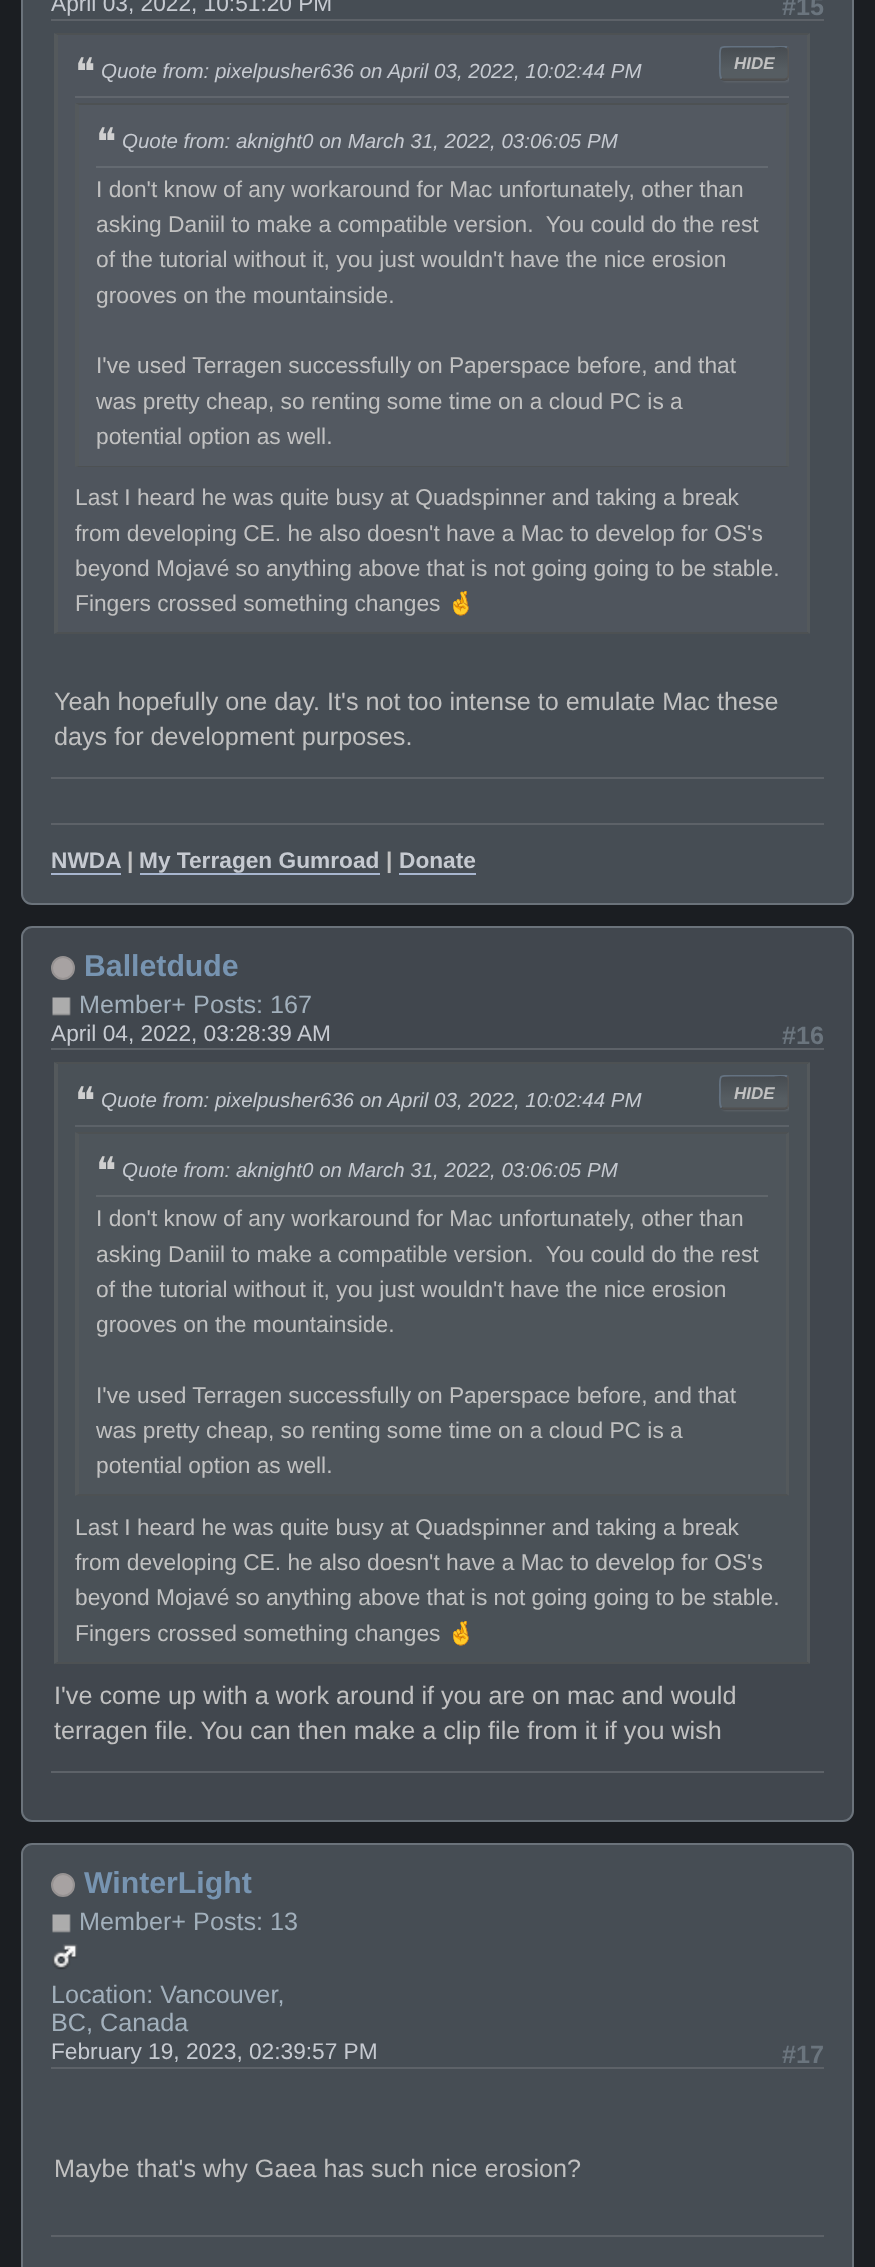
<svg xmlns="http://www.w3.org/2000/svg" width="875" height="2267">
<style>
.a{font:22.7px Liberation Sans;fill:#c6cad1}
.b{font:bold 25.2px Liberation Sans;fill:#6b757e}
.c{font:38px DejaVu Sans;fill:#cfcfcf}
.d{font:italic 20.5px Liberation Sans;fill:#c6cad1}
.e{font:italic bold 17px Liberation Sans;fill:#c1c1c1}
.f{font:22.75px Liberation Sans;fill:#c1c1c1}
.g{font:22.75px Noto Color Emoji;fill:#c1c1c1}
.h{font:25.2px Liberation Sans;fill:#c1c1c1}
.i{font:bold 22.7px Liberation Sans;fill:#c6cad1}
.j{font:bold 22.7px Liberation Sans;fill:#c1c1c1}
.k{font:bold 30.25px Liberation Sans;fill:#7794b1}
.l{font:25.2px Liberation Sans;fill:#a2b0bc}
</style>
<defs>
<clipPath id="clip1"><path d="M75 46h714v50H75z"/></clipPath>
<clipPath id="clip2"><rect x="719" y="46" width="70" height="35" rx="5"/></clipPath>
<linearGradient id="g1" gradientUnits="userSpaceOnUse" x1="754" y1="47" x2="754" y2="79"><stop offset="0" stop-color="#474c51"/><stop offset="0.7" stop-color="#565d62"/></linearGradient>
<linearGradient id="g2" gradientUnits="userSpaceOnUse" x1="754" y1="79" x2="754" y2="110"><stop offset="0" stop-color="#474c51"/><stop offset="0.7" stop-color="#565d62"/></linearGradient>
<clipPath id="clip3"><path d="M75 46h714v50H75z"/></clipPath>
<clipPath id="clip4"><path d="M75 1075h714v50H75z"/></clipPath>
<clipPath id="clip5"><rect x="719" y="1075" width="70" height="35" rx="5"/></clipPath>
<linearGradient id="g3" gradientUnits="userSpaceOnUse" x1="754" y1="1076" x2="754" y2="1108"><stop offset="0" stop-color="#474c51"/><stop offset="0.7" stop-color="#565d62"/></linearGradient>
<linearGradient id="g4" gradientUnits="userSpaceOnUse" x1="754" y1="1108" x2="754" y2="1139"><stop offset="0" stop-color="#474c51"/><stop offset="0.7" stop-color="#565d62"/></linearGradient>
<clipPath id="clip6"><path d="M75 1075h714v50H75z"/></clipPath>
</defs>
<rect width="100%" height="100%" fill="#1b1e22"/>
<rect fill="#464d54" stroke="#6b737b" stroke-width="2" x="22" y="-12" width="831" height="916" rx="10"/>
<path fill="#5d6268" d="M51 19h773v2H51z"/>
<path fill="#4f555d" d="M58 35h749v597H58z"/>
<path fill="#4d5153" d="M54 33h756l-3 2h-749z"/>
<path fill="#54595c" d="M810 33v601l-3-2v-597z"/>
<path fill="#4d5153" d="M810 634h-756l4-2h749z"/>
<path fill="#54595c" d="M54 634v-601l4 2v597z"/>
<path fill="#61666d" d="M75 96h714v2H75z"/>
<g clip-path="url(#clip1)">
<rect fill="#ffffff1a" filter="blur(1px)" x="721" y="47" width="70" height="35" rx="5"/>
</g>
<g clip-path="url(#clip2)">
<path fill="url(#g1)" d="M719 47h70v32H719z"/>
<path fill="url(#g2)" d="M719 79h70v2H719z"/>
</g>
<g clip-path="url(#clip3)">
<path fill="none" stroke="#575757" stroke-width="1.8" d="M787 47.5c1 1 1.5 2 1.5 3.5v24c0 1.5-.5 2.5-1.5 3.5"/>
</g>
<path fill="none" stroke="#515151" stroke-width="1.8" d="M787 78.5l-2.5 1h-60.5l-2.5-1"/>
<g clip-path="url(#clip3)">
<path fill="none" stroke="#647281" stroke-width="1.8" d="M721.5 78.5c-2.5-2.5-1.5-12.5-1.5-15.5c0-17.5-2.5-16.5 14.5-16.5h39.5c1.5 0 10-1.5 13 1"/>
</g>
<path fill="#535961" d="M79 105h707v361H79z"/>
<path fill="#4d5153" d="M75 103h714l-3 2h-707z"/>
<path fill="#54595c" d="M789 103v364l-3-1v-361z"/>
<path fill="#4d5153" d="M789 467h-714l4-1h707z"/>
<path fill="#54595c" d="M75 467v-364l4 2v361z"/>
<path fill="#646a71" d="M96 166h672v2H96z"/>
<path fill="#5d6268" d="M51 777h773v2H51z"/>
<path fill="#5d6268" d="M51 823h773v2H51z"/>
<path fill="#a8b6cf" d="M51 873h70v2H51z"/>
<path fill="#a8b6cf" d="M140 873h240v2H140z"/>
<path fill="#a8b6cf" d="M399 873h77v2H399z"/>
<rect fill="#41474e" stroke="#6b737b" stroke-width="2" x="22" y="927" width="831" height="894" rx="10"/>
<circle fill="#a7a2a2" stroke="#969292" stroke-width="2" cx="63" cy="968" r="11"/>
<image href="1.png" x="52" y="997" width="19" height="19"/>
<path fill="#5d6268" d="M51 1048h773v2H51z"/>
<path fill="#4a5157" d="M58 1064h749v598H58z"/>
<path fill="#4d5153" d="M54 1062h756l-3 2h-749z"/>
<path fill="#54595c" d="M810 1062v602l-3-2v-598z"/>
<path fill="#4d5153" d="M810 1664h-756l4-2h749z"/>
<path fill="#54595c" d="M54 1664v-602l4 2v598z"/>
<path fill="#5c6268" d="M75 1125h714v2H75z"/>
<g clip-path="url(#clip4)">
<rect fill="#ffffff1a" filter="blur(1px)" x="721" y="1076" width="70" height="35" rx="5"/>
</g>
<g clip-path="url(#clip5)">
<path fill="url(#g3)" d="M719 1076h70v32H719z"/>
<path fill="url(#g4)" d="M719 1108h70v2H719z"/>
</g>
<g clip-path="url(#clip6)">
<path fill="none" stroke="#575757" stroke-width="1.8" d="M787 1076.5c1 1 1.5 2 1.5 3.5v24c0 1.5-.5 2.5-1.5 3.5"/>
</g>
<path fill="none" stroke="#515151" stroke-width="1.8" d="M787 1107.5l-2.5 1h-60.5l-2.5-1"/>
<g clip-path="url(#clip6)">
<path fill="none" stroke="#647281" stroke-width="1.8" d="M721.5 1107.5c-2.5-2.5-1.5-12.5-1.5-15.5c0-17.5-2.5-16.5 14.5-16.5h39.5c1.5 0 10-1.5 13 1"/>
</g>
<path fill="#4e555b" d="M79 1134h707v360H79z"/>
<path fill="#4d5153" d="M75 1132h714l-3 2h-707z"/>
<path fill="#54595c" d="M789 1132v364l-3-2v-360z"/>
<path fill="#4d5153" d="M789 1496h-714l4-2h707z"/>
<path fill="#54595c" d="M75 1496v-364l4 2v360z"/>
<path fill="#60666b" d="M96 1195h672v2H96z"/>
<path fill="#5d6268" d="M51 1771h773v2H51z"/>
<rect fill="#464d54" stroke="#6b737b" stroke-width="2" x="22" y="1844" width="831" height="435" rx="10"/>
<circle fill="#a7a2a2" stroke="#969292" stroke-width="2" cx="63" cy="1885" r="11"/>
<image href="2.png" x="52" y="1914" width="19" height="19"/>
<image href="3.png" x="52" y="1944" width="26" height="26"/>
<path fill="#5d6268" d="M51 2067h773v2H51z"/>
<path fill="#5d6268" d="M51 2235h773v2H51z"/>
<text class="a" x="51" y="11">April 03, 2022, 10:51:20 PM</text>
<text class="b" x="782" y="15">#15</text>
<text class="c" x="75" y="85">❝</text>
<text class="d" x="101" y="78">Quote from: pixelpusher636 on April 03, 2022, 10:02:44 PM</text>
<text class="e" x="734" y="69">HIDE</text>
<text class="c" x="96" y="155">❝</text>
<text class="d" x="122" y="148">Quote from: aknight0 on March 31, 2022, 03:06:05 PM</text>
<text class="f" x="96" y="197">I don't know of any workaround for Mac unfortunately, other than</text>
<text class="f" xml:space="preserve" x="96" y="232">asking Daniil to make a compatible version.  You could do the rest</text>
<text class="f" x="96" y="267">of the tutorial without it, you just wouldn't have the nice erosion</text>
<text class="f" x="96" y="303">grooves on the mountainside.</text>
<text class="f" x="96" y="373">I've used Terragen successfully on Paperspace before, and that</text>
<text class="f" x="96" y="409">was pretty cheap, so renting some time on a cloud PC is a</text>
<text class="f" x="96" y="444">potential option as well.</text>
<text class="f" x="75" y="505">Last I heard he was quite busy at Quadspinner and taking a break</text>
<text class="f" x="75" y="541">from developing CE. he also doesn't have a Mac to develop for OS's</text>
<text class="f" x="75" y="576">beyond Mojavé so anything above that is not going going to be stable.</text>
<text class="f" x="75" y="611">Fingers crossed something changes</text>
<text class="g" x="447" y="611">🤞</text>
<text class="h" x="54" y="710">Yeah hopefully one day. It's not too intense to emulate Mac these</text>
<text class="h" x="54" y="745">days for development purposes.</text>
<text class="i" x="51" y="868">NWDA</text>
<text class="j" x="127" y="868">|</text>
<text class="i" x="139" y="868">My Terragen Gumroad</text>
<text class="j" x="386" y="868">|</text>
<text class="i" x="399" y="868">Donate</text>
<text class="k" x="84" y="976">Balletdude</text>
<text class="l" x="79" y="1013">Member+ Posts: 167</text>
<text class="a" x="51" y="1041">April 04, 2022, 03:28:39 AM</text>
<text class="b" x="782" y="1044">#16</text>
<text class="c" x="75" y="1114">❝</text>
<text class="d" x="101" y="1107">Quote from: pixelpusher636 on April 03, 2022, 10:02:44 PM</text>
<text class="e" x="734" y="1099">HIDE</text>
<text class="c" x="96" y="1184">❝</text>
<text class="d" x="122" y="1177">Quote from: aknight0 on March 31, 2022, 03:06:05 PM</text>
<text class="f" x="96" y="1226">I don't know of any workaround for Mac unfortunately, other than</text>
<text class="f" xml:space="preserve" x="96" y="1262">asking Daniil to make a compatible version.  You could do the rest</text>
<text class="f" x="96" y="1297">of the tutorial without it, you just wouldn't have the nice erosion</text>
<text class="f" x="96" y="1332">grooves on the mountainside.</text>
<text class="f" x="96" y="1403">I've used Terragen successfully on Paperspace before, and that</text>
<text class="f" x="96" y="1438">was pretty cheap, so renting some time on a cloud PC is a</text>
<text class="f" x="96" y="1473">potential option as well.</text>
<text class="f" x="75" y="1535">Last I heard he was quite busy at Quadspinner and taking a break</text>
<text class="f" x="75" y="1570">from developing CE. he also doesn't have a Mac to develop for OS's</text>
<text class="f" x="75" y="1605">beyond Mojavé so anything above that is not going going to be stable.</text>
<text class="f" x="75" y="1641">Fingers crossed something changes</text>
<text class="g" x="447" y="1641">🤞</text>
<text class="h" x="54" y="1704">I've come up with a work around if you are on mac and would</text>
<text class="h" x="54" y="1739">terragen file. You can then make a clip file from it if you wish</text>
<text class="k" x="84" y="1893">WinterLight</text>
<text class="l" x="79" y="1930">Member+ Posts: 13</text>
<text class="l" x="51" y="2003">Location: Vancouver,</text>
<text class="l" x="51" y="2031">BC, Canada</text>
<text class="a" x="51" y="2059">February 19, 2023, 02:39:57 PM</text>
<text class="b" x="782" y="2063">#17</text>
<text class="h" x="54" y="2177">Maybe that's why Gaea has such nice erosion?</text>
</svg>
